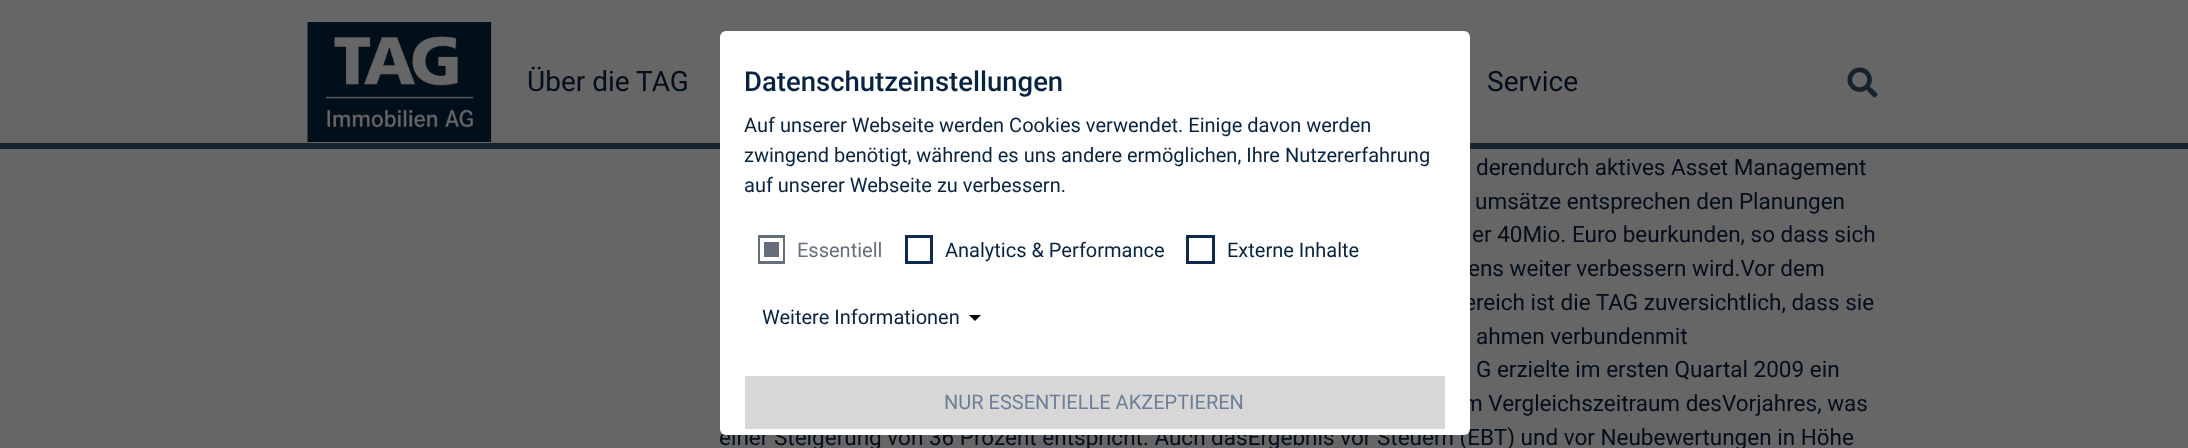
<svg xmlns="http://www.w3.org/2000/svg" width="2188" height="448">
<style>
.a{font:28px Roboto;fill:#030e1a}
.b{font:22.5px Roboto;fill:#030e1a}
.c{font:500 27.5px Roboto;fill:#072342}
.d{font:20px Roboto;fill:#072342}
.e{font:20px Roboto;fill:#676e7b}
.f{font:20px Roboto;fill:#6c7f97}
</style>
<rect width="100%" height="100%" fill="#666"/>
<path fill="#17222c" d="M0 143h2188v6H0z"/>
<image href="1.png" x="307" y="22" width="185" height="120"/>
<image href="2.png" x="1847" y="67" width="31" height="31"/>
<text class="a" x="527" y="91">Über die TAG</text>
<text class="a" x="1487" y="91">Service</text>
<text class="b" x="1476" y="175">derendurch aktives Asset Management</text>
<text class="b" x="1475" y="209">umsätze entsprechen den Planungen</text>
<text class="b" x="1472" y="242">er 40Mio. Euro beurkunden, so dass sich</text>
<text class="b" x="1468" y="276">ens weiter verbessern wird.Vor dem</text>
<text class="b" x="1464" y="310">ereich ist die TAG zuversichtlich, dass sie</text>
<text class="b" x="1476" y="344">ahmen verbundenmit</text>
<text class="b" x="1476" y="377">G erzielte im ersten Quartal 2009 ein</text>
<text class="b" x="1463" y="411">m Vergleichszeitraum desVorjahres, was</text>
<text class="b" x="719" y="445">einer Steigerung von 36 Prozent entspricht. Auch dasErgebnis vor Steuern (EBT) und vor Neubewertungen in Höhe</text>
<rect fill="#fff" x="720" y="31" width="750" height="404" rx="6"/>
<text class="c" x="744" y="91">Datenschutzeinstellungen</text>
<text class="d" x="744" y="132">Auf unserer Webseite werden Cookies verwendet. Einige davon werden</text>
<text class="d" x="744" y="162">zwingend benötigt, während es uns andere ermöglichen, Ihre Nutzererfahrung</text>
<text class="d" x="744" y="192">auf unserer Webseite zu verbessern.</text>
<path fill="none" stroke="#676e7b" stroke-width="3" d="M759.5 236.5h24v26H759.5z"/>
<path fill="#676e7b" stroke="#fff" stroke-width="4" d="M762 240h19v19H762z"/>
<text class="e" x="797" y="257">Essentiell</text>
<path fill="none" stroke="#0f2a4f" stroke-width="3" d="M906.5 236.5h25v26H906.5z"/>
<text class="d" x="945" y="257">Analytics &amp; Performance</text>
<path fill="none" stroke="#0f2a4f" stroke-width="3" d="M1187.5 236.5h26v26H1187.5z"/>
<text class="d" x="1227" y="257">Externe Inhalte</text>
<text class="d" x="762" y="324">Weitere Informationen</text>
<path fill="#000" d="M969 315h12l-6 6z"/>
<path fill="#d7d7d7" d="M745 376h700v53H745z"/>
<text class="f" x="944" y="409">NUR ESSENTIELLE AKZEPTIEREN</text>
</svg>
